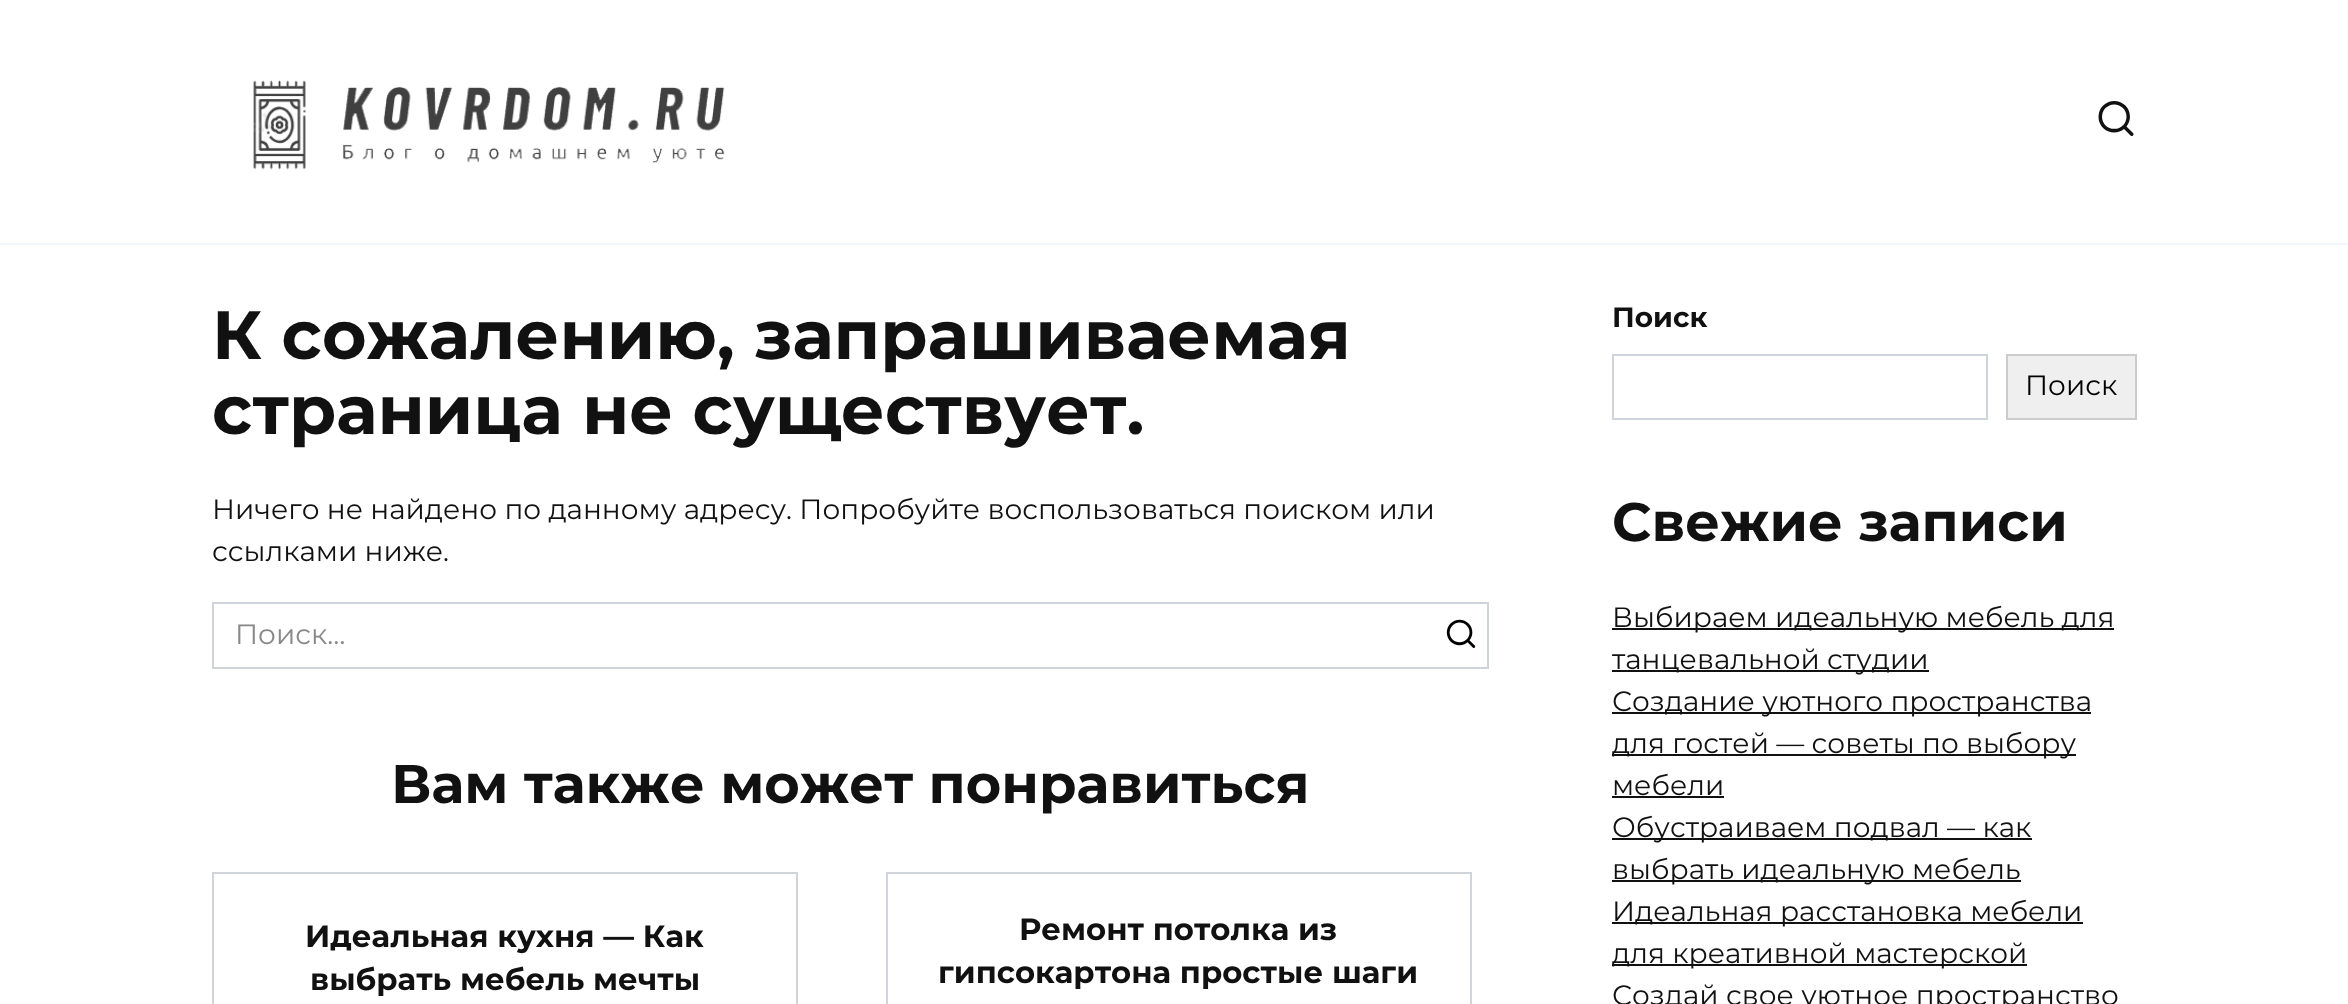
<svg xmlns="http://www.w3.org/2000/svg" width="2348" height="1004">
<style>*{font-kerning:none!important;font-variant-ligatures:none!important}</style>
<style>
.a{font:42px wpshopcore;fill:#111}
.b{font:bold 68.25px Montserrat;fill:#111}
.c{font:28px Montserrat;fill:#111}
.d{font:28px Montserrat;fill:#888}
.e{font:34px wpshopcore;fill:#000}
.f{font:bold 54.25px Montserrat;fill:#111}
.g{font:bold 30.75px Montserrat;fill:#111}
.h{font:bold 28px Montserrat;fill:#111}
.i{font:28px Montserrat;fill:#000}
</style>
<rect width="100%" height="100%" fill="#fff"/>
<path fill="#f2f5f9" d="M0 243h2348v2H0z"/>
<image href="1.png" x="253" y="80" width="472" height="90"/>
<path fill="none" stroke="#ced4da" stroke-width="2" d="M213 603h1275v65H213z"/>
<path fill="none" stroke="#ced4da" stroke-width="2" d="M213 873h584v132H213z"/>
<path fill="none" stroke="#ced4da" stroke-width="2" d="M887 873h584v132H887z"/>
<path fill="none" stroke="#ced4da" stroke-width="2" d="M1613 355h374v64H1613z"/>
<path fill="#efefef" stroke="#ccc" stroke-width="2" d="M2007 355h129v64H2007z"/>
<path fill="#111" d="M1612 628h502v2H1612z"/>
<path fill="#111" d="M1612 670h317v2H1612z"/>
<path fill="#111" d="M1612 712h479v2H1612z"/>
<path fill="#111" d="M1612 754h464v2H1612z"/>
<path fill="#111" d="M1612 796h112v2H1612z"/>
<path fill="#111" d="M1612 838h420v2H1612z"/>
<path fill="#111" d="M1612 880h409v2H1612z"/>
<path fill="#111" d="M1612 922h471v2H1612z"/>
<path fill="#111" d="M1612 964h415v2H1612z"/>
<text class="a" x="2095" y="136">🔍</text>
<text class="b" x="212" y="359">К сожалению, запрашиваемая</text>
<text class="b" x="212" y="434">страница не существует.</text>
<text class="c" x="212" y="519">Ничего не найдено по данному адресу. Попробуйте воспользоваться поиском или</text>
<text class="c" x="212" y="561">ссылками ниже.</text>
<text class="d" x="235" y="644">Поиск…</text>
<text class="e" x="1444" y="648">🔍</text>
<text class="f" x="391" y="803">Вам также может понравиться</text>
<text class="g" x="305" y="947">Идеальная кухня — Как</text>
<text class="g" x="310" y="990">выбрать мебель мечты</text>
<text class="g" x="1019" y="940">Ремонт потолка из</text>
<text class="g" x="938" y="983">гипсокартона простые шаги</text>
<text class="h" x="1612" y="327">Поиск</text>
<text class="i" x="2025" y="395">Поиск</text>
<text class="f" x="1612" y="541">Свежие записи</text>
<text class="c" x="1612" y="627">Выбираем идеальную мебель для</text>
<text class="c" x="1612" y="669">танцевальной студии</text>
<text class="c" x="1612" y="711">Создание уютного пространства</text>
<text class="c" x="1612" y="753">для гостей — советы по выбору</text>
<text class="c" x="1612" y="795">мебели</text>
<text class="c" x="1612" y="837">Обустраиваем подвал — как</text>
<text class="c" x="1612" y="879">выбрать идеальную мебель</text>
<text class="c" x="1612" y="921">Идеальная расстановка мебели</text>
<text class="c" x="1612" y="963">для креативной мастерской</text>
<text class="c" x="1612" y="1005">Создай свое уютное пространство</text>
</svg>
